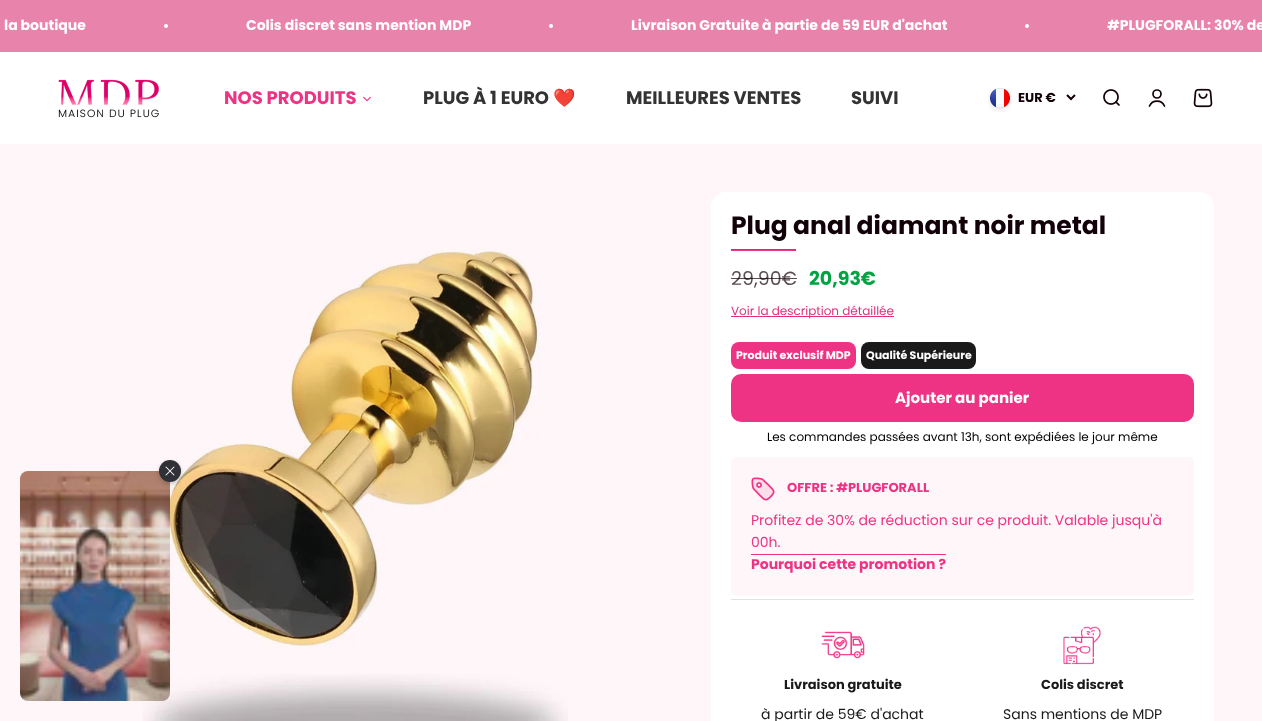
<svg xmlns="http://www.w3.org/2000/svg" width="1262" height="721">
<style>
.a{font:bold 14px Poppins;fill:#fff}
.b{font:bold 18px Poppins;fill:#ef3384}
.c{font:bold 18px Poppins;fill:#333}
.d{font:bold 18px Noto Color Emoji;fill:#333}
.e{font:bold 13px Poppins;fill:#130109}
.f{font:bold 25px Poppins;fill:#130109}
.g{font:19px Poppins;fill:#5a4d53}
.h{font:bold 19px Poppins;fill:#00a341}
.i{font:12px Poppins;fill:#e12f80}
.j{font:bold 11px Poppins;fill:#fff}
.k{font:bold 15px Poppins;fill:#fff}
.l{font:12px Poppins;fill:#000}
.m{font:bold 13px Poppins;fill:#ef3384}
.n{font:14px Poppins;fill:#ef3384}
.o{font:bold 14px Poppins;fill:#ef3384}
.p{font:bold 13px Poppins;fill:#1a1a1a}
.q{font:14px Poppins;fill:#1a1a1a}
</style>
<rect width="100%" height="100%" fill="#fff"/>
<path fill="#e883ac" d="M0 0h1262v52H0z"/>
<circle fill="#fff" cx="166" cy="26" r="2"/>
<circle fill="#fff" cx="551" cy="26" r="2"/>
<circle fill="#fff" cx="1027" cy="26" r="2"/>
<image href="1.png" x="58" y="79" width="101" height="39"/>
<image href="2.png" x="363" y="96" width="8" height="6"/>
<image href="3.png" x="988" y="88" width="24" height="24"/>
<path fill="none" stroke="#130109" stroke-width="2" d="M1067 95l4 4l4-4"/>
<image href="4.png" x="1103" y="89" width="17" height="17"/>
<circle fill="none" stroke="#130109" stroke-width="1.7" cx="1157" cy="94" r="4"/>
<path fill="none" stroke="#130109" stroke-width="1.7" stroke-linecap="round" d="M1149.5 106c3-6.5 12-6.5 15 0"/>
<image href="5.png" x="1193" y="88" width="20" height="20"/>
<path fill="#fef6f9" d="M0 144h1262v577H0z"/>
<image href="8.png" x="142" y="248" width="426" height="473"/>
<image href="7.png" x="20" y="471" width="150" height="230"/>
<rect fill="#00000033" filter="blur(2px)" x="159" y="462" width="22" height="22" rx="11"/>
<circle fill="#2f3137" cx="170" cy="471" r="11"/>
<image href="6.png" x="165" y="466" width="10" height="10"/>
<rect fill="#fff" x="711" y="192" width="503" height="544" rx="15"/>
<path fill="#ee3488" d="M731 250h65v1H731z"/>
<path fill="#d42e79" d="M731 249h65v1H731z"/>
<path fill="#e12f80" d="M731 316h163v1H731z"/>
<rect fill="#ef3384" x="731" y="342" width="125" height="27" rx="8"/>
<rect fill="#1a1a1a" x="861" y="342" width="115" height="27" rx="8"/>
<rect fill="#ef3384" x="731" y="374" width="463" height="48" rx="10"/>
<rect fill="#fef6f9" x="731" y="457" width="463" height="139" rx="6"/>
<image href="9.png" x="751" y="477" width="24" height="24"/>
<path fill="#ef3384" d="M751 554h195v1H751z"/>
<path fill="#e3e1e1" d="M731 599h463v1H731z"/>
<image href="10.png" x="821" y="631" width="44" height="28"/>
<image href="11.png" x="1063" y="626" width="38" height="39"/>
<text class="a" x="4" y="30">la boutique</text>
<text class="a" x="246" y="30">Colis discret sans mention MDP</text>
<text class="a" x="631" y="30">Livraison Gratuite à partie de 59 EUR d'achat</text>
<text class="a" x="1107" y="30">#PLUGFORALL: 30% de</text>
<text class="b" x="224" y="104">NOS PRODUITS</text>
<text class="c" x="423" y="104">PLUG À 1 EURO</text>
<text class="d" x="553" y="104">❤️</text>
<text class="c" x="626" y="104">MEILLEURES VENTES</text>
<text class="c" x="851" y="104">SUIVI</text>
<text class="e" x="1018" y="102">EUR €</text>
<text class="f" x="731" y="234">Plug anal diamant noir metal</text>
<text class="g" x="731" y="285">29,90€</text>
<path fill="#130109b3" d="M731 278h66v1H731z"/>
<text class="h" x="809" y="285">20,93€</text>
<text class="i" x="731" y="315">Voir la description détaillée</text>
<text class="j" x="736" y="359">Produit exclusif MDP</text>
<text class="j" x="866" y="359">Qualité Supérieure</text>
<text class="k" x="895" y="403">Ajouter au panier</text>
<text class="l" x="767" y="441">Les commandes passées avant 13h, sont expédiées le jour même</text>
<text class="m" x="787" y="492">OFFRE : #PLUGFORALL</text>
<text class="n" x="751" y="525">Profitez de 30% de réduction sur ce produit. Valable jusqu'à</text>
<text class="n" x="751" y="547">00h.</text>
<text class="o" x="751" y="569">Pourquoi cette promotion ?</text>
<text class="p" x="784" y="689">Livraison gratuite</text>
<text class="q" x="761" y="719">à partir de 59€ d'achat</text>
<text class="p" x="1041" y="689">Colis discret</text>
<text class="q" x="1003" y="719">Sans mentions de MDP</text>
</svg>
